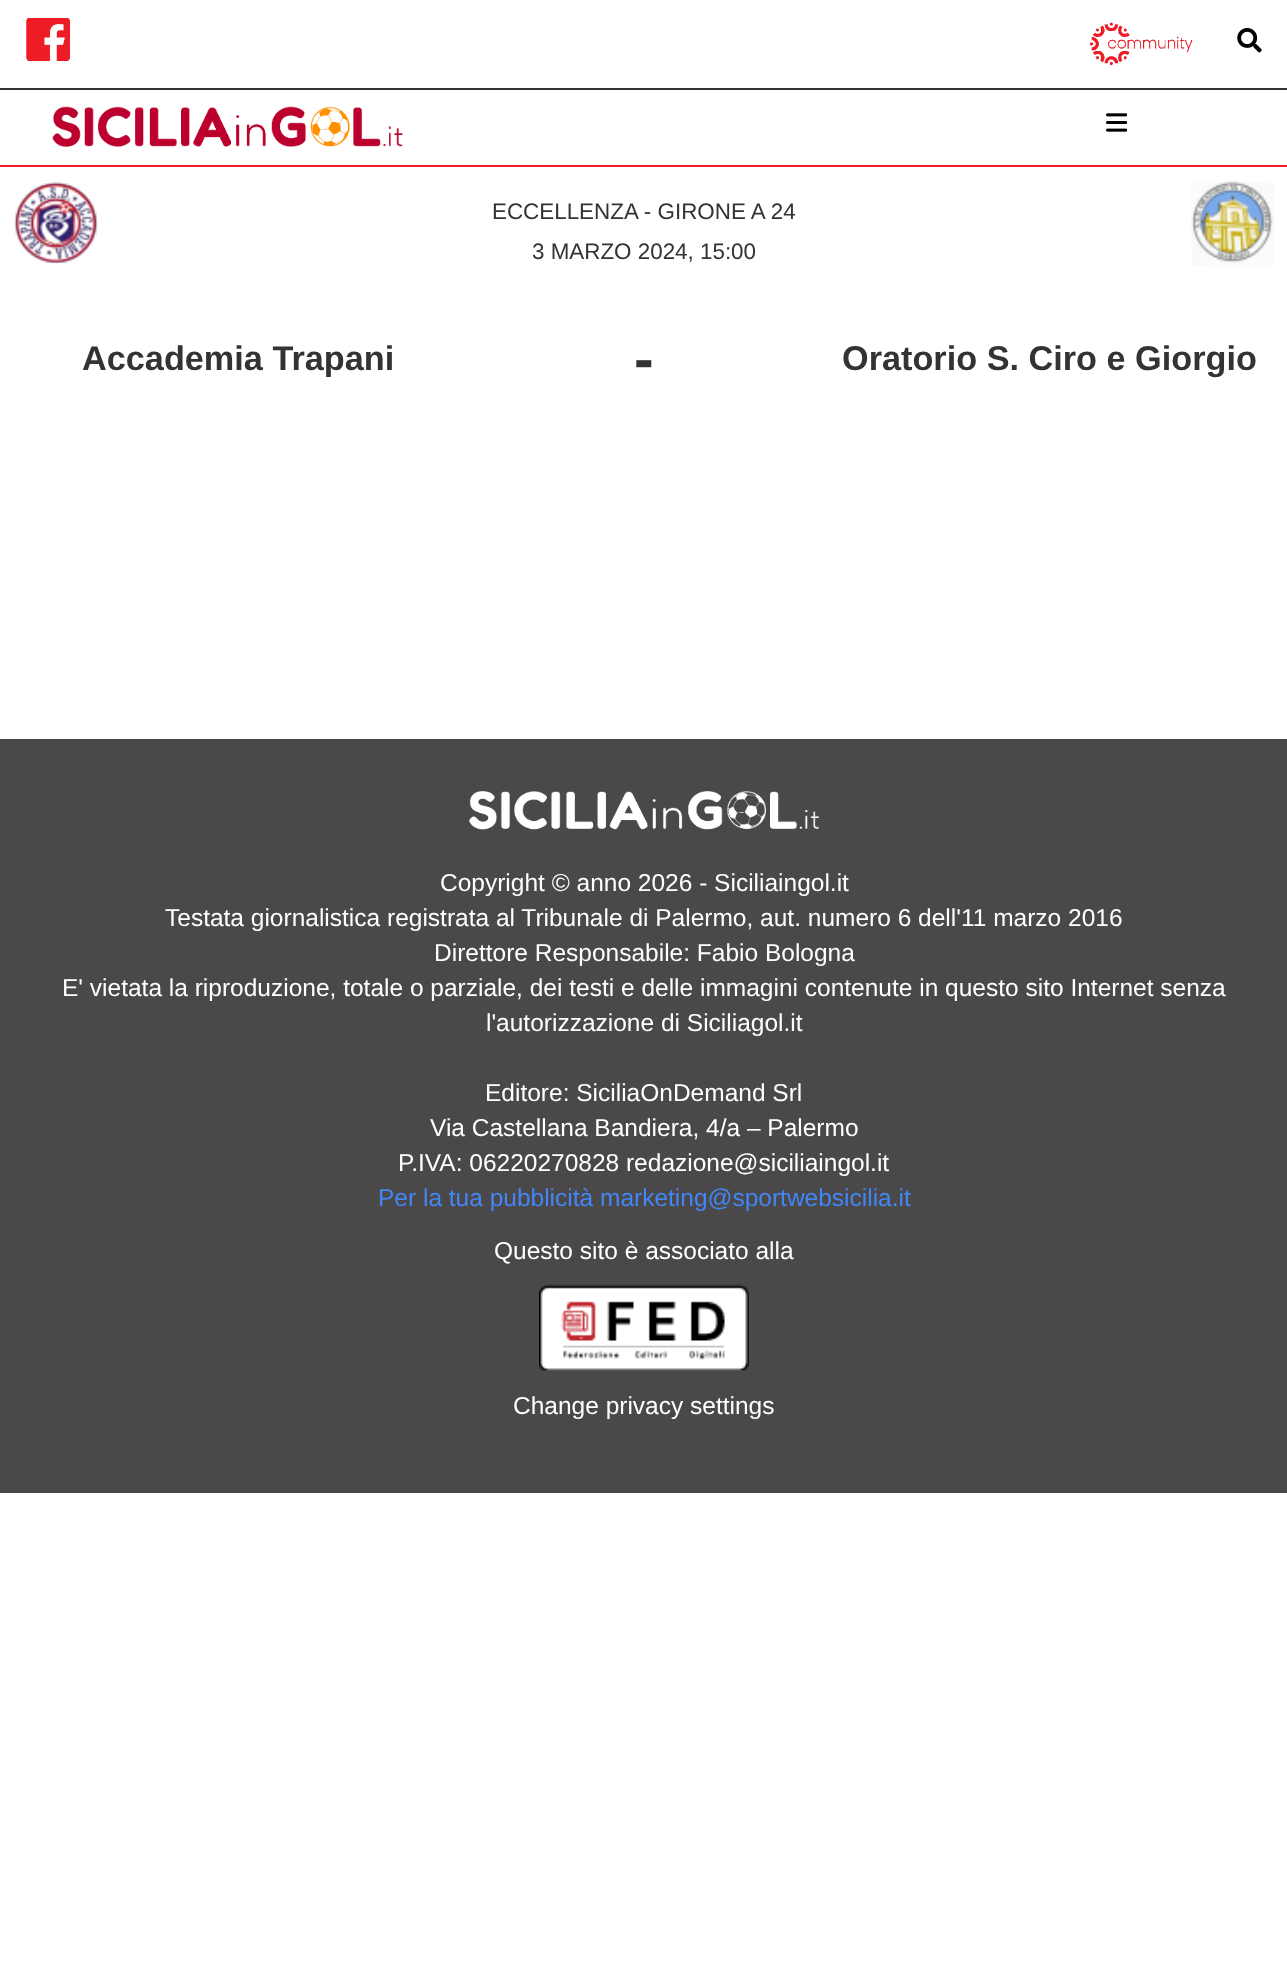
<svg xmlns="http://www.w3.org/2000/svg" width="1287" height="1966">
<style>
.a{font:22.4px Liberation Sans;fill:#333}
.b{font:bold 34.25px Liberation Sans;fill:#333}
.c{font:bold 59px Liberation Sans;fill:#333}
.d{font:24.5px Liberation Sans;fill:#fff}
.e{font:24.5px Liberation Sans;fill:#4287f5}
</style>
<rect width="100%" height="100%" fill="#fff"/>
<image href="1.png" x="26" y="18" width="44" height="43"/>
<image href="2.png" x="1089" y="22" width="104" height="44"/>
<image href="3.png" x="1237" y="28" width="25" height="25"/>
<path fill="#333" d="M0 88h1287v2H0z"/>
<path fill="#ee1c25" d="M0 165h1287v2H0z"/>
<image href="4.png" x="52" y="106" width="351" height="41"/>
<image href="5.png" x="1106" y="113" width="21" height="19"/>
<image href="6.png" x="14" y="181" width="84" height="84"/>
<image href="7.png" x="1191" y="181" width="84" height="85"/>
<path fill="#4a4849" d="M0 739h1287v754H0z"/>
<image href="8.png" x="469" y="791" width="350" height="39"/>
<image href="9.png" x="539" y="1284" width="210" height="87"/>
<text class="a" x="492" y="219">ECCELLENZA - GIRONE A 24</text>
<text class="a" x="532" y="259">3 MARZO 2024, 15:00</text>
<text class="b" x="82" y="370">Accademia Trapani</text>
<text class="c" x="634" y="379">-</text>
<text class="b" x="842" y="370">Oratorio S. Ciro e Giorgio</text>
<text class="d" x="440" y="891">Copyright © anno 2026 - Siciliaingol.it</text>
<text class="d" x="165" y="926">Testata giornalistica registrata al Tribunale di Palermo, aut. numero 6 dell'11 marzo 2016</text>
<text class="d" x="434" y="961">Direttore Responsabile: Fabio Bologna</text>
<text class="d" x="62" y="996">E' vietata la riproduzione, totale o parziale, dei testi e delle immagini contenute in questo sito Internet senza</text>
<text class="d" x="486" y="1031">l'autorizzazione di Siciliagol.it</text>
<text class="d" x="485" y="1101">Editore: SiciliaOnDemand Srl</text>
<text class="d" x="430" y="1136">Via Castellana Bandiera, 4/a – Palermo</text>
<text class="d" x="398" y="1171">P.IVA: 06220270828 redazione@siciliaingol.it</text>
<text class="e" x="378" y="1206">Per la tua pubblicità marketing@sportwebsicilia.it</text>
<text class="d" x="494" y="1259">Questo sito è associato alla</text>
<text class="d" x="513" y="1414">Change privacy settings</text>
</svg>
